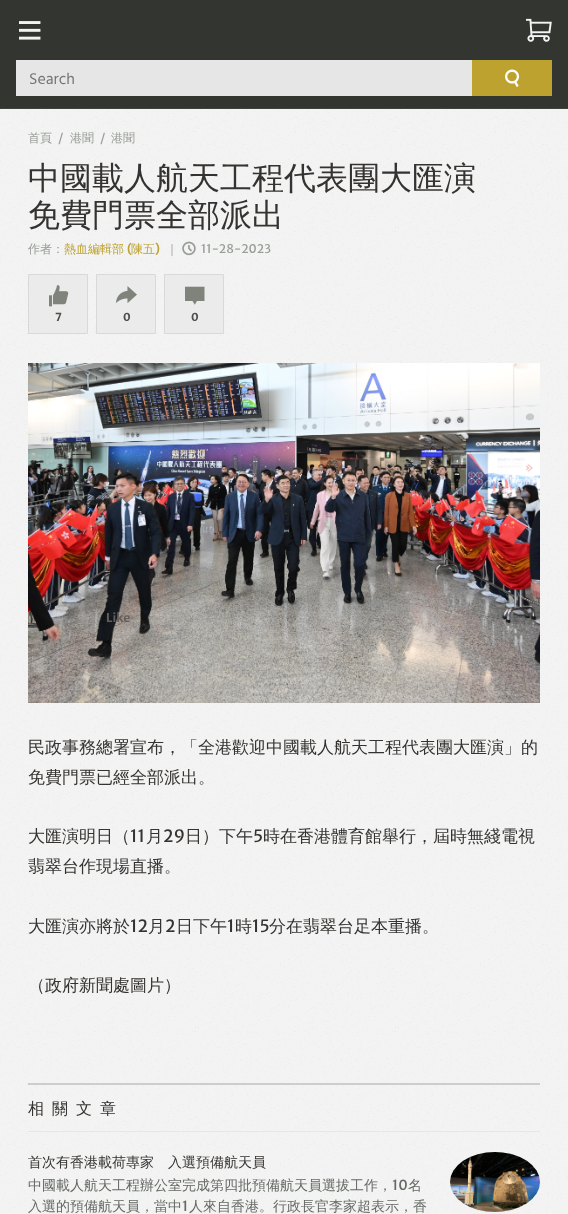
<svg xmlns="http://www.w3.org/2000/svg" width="568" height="1214">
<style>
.a{font:16px Hind Vadodara;fill:#757575}
.b{font:500 12px WenQuanYi Zen Hei;fill:#989c96}
.c{font:12px Merriweather Sans;fill:#989c96}
.d{font:500 32px WenQuanYi Zen Hei;fill:#353331}
.e{font:500 12px WenQuanYi Zen Hei;fill:#bea22f}
.f{font:bold 12px Merriweather Sans;fill:#bea22f}
.g{font:bold 11px Merriweather Sans;fill:#4c4f4a}
.h{font:500 17px WenQuanYi Zen Hei;fill:#353331}
.i{font:17px Merriweather Sans;fill:#353331}
.j{font:500 16px WenQuanYi Zen Hei;letter-spacing:8px;fill:#353331}
.k{font:500 14px WenQuanYi Zen Hei;fill:#353331}
.l{font:500 14px WenQuanYi Zen Hei;fill:#656963}
.m{font:14px Merriweather Sans;fill:#656963}
.n{font:bold 12px Merriweather Sans;fill:#635e5c}
</style>
<rect width="100%" height="100%" fill="#f2f3f2"/>
<image href="1.png" x="0" y="109" width="568" height="1105"/>
<path fill="#3f423e" d="M0 108h568v1H0z"/>
<path fill="#333531" d="M0 0h568v108H0z"/>
<image href="2.png" x="19" y="21" width="22" height="19"/>
<image href="3.png" x="526" y="18" width="26" height="24"/>
<path fill="#e5e6e5" d="M16 60h456v36H16z"/>
<path fill="#bea22f" d="M472 60h80v36H472z"/>
<image href="4.png" x="505" y="69" width="15" height="18"/>
<image href="5.png" x="182" y="241" width="14" height="15"/>
<path fill="#eaebea" stroke="#d8dad8" d="M28.5 274.5h59v59H28.5z"/>
<image href="6.png" x="49" y="285" width="20" height="22"/>
<path fill="#eaebea" stroke="#d8dad8" d="M96.5 274.5h59v59H96.5z"/>
<image href="7.png" x="116" y="286" width="21" height="17"/>
<path fill="#eaebea" stroke="#d8dad8" d="M164.5 274.5h59v59H164.5z"/>
<image href="8.png" x="185" y="286" width="20" height="19"/>
<image href="9.png" x="28" y="363" width="512" height="340"/>
<path fill="#ccceca" d="M28 1083h512v2H28z"/>
<path fill="#e5e6e5" d="M28 1131h512v1H28z"/>
<ellipse fill="#eaebea" cx="495" cy="1182" rx="45" ry="30"/>
<image href="10.png" x="450" y="1152" width="90" height="60"/>
<text class="a" x="29" y="84">Search</text>
<text class="b" x="28" y="142">首頁</text>
<text class="c" x="58" y="142">/</text>
<text class="b" x="70" y="142">港聞</text>
<text class="c" x="100" y="142">/</text>
<text class="b" x="111" y="142">港聞</text>
<text class="d" x="28" y="189">中國載人航天工程代表團大匯演</text>
<text class="d" x="28" y="226">免費門票全部派出</text>
<text class="b" x="28" y="253">作者：</text>
<text class="e" x="64" y="253">熱血編輯部</text>
<text class="f" x="127" y="253">(</text>
<text class="e" x="131" y="253">陳五</text>
<text class="f" x="155" y="253">)</text>
<text class="b" x="166" y="253">｜</text>
<text class="c" x="201" y="253">11-28-2023</text>
<text class="g" x="55" y="321">7</text>
<text class="g" x="123" y="321">0</text>
<text class="g" x="191" y="321">0</text>
<text class="h" x="28" y="753">民政事務總署宣布，「全港歡迎中國載人航天工程代表團大匯演」的</text>
<text class="h" x="28" y="783">免費門票已經全部派出。</text>
<text class="h" x="28" y="842">大匯演明日（</text>
<text class="i" x="130" y="842">11</text>
<text class="h" x="146" y="842">月</text>
<text class="i" x="163" y="842">29</text>
<text class="h" x="185" y="842">日）下午</text>
<text class="i" x="253" y="842">5</text>
<text class="h" x="263" y="842">時在香港體育館舉行，屆時無綫電視</text>
<text class="h" x="28" y="872">翡翠台作現場直播。</text>
<text class="h" x="28" y="932">大匯演亦將於</text>
<text class="i" x="130" y="932">12</text>
<text class="h" x="148" y="932">月</text>
<text class="i" x="165" y="932">2</text>
<text class="h" x="176" y="932">日下午</text>
<text class="i" x="227" y="932">1</text>
<text class="h" x="235" y="932">時</text>
<text class="i" x="252" y="932">15</text>
<text class="h" x="269" y="932">分在翡翠台足本重播。</text>
<text class="h" x="28" y="991">（政府新聞處圖片）</text>
<text class="j" x="28" y="1114">相關文章</text>
<text class="k" x="28" y="1167">首次有香港載荷專家　入選預備航天員</text>
<text class="l" x="28" y="1190">中國載人航天工程辦公室完成第四批預備航天員選拔工作，</text>
<text class="m" x="392" y="1190">10</text>
<text class="l" x="408" y="1190">名</text>
<text class="l" x="28" y="1211">入選的預備航天員，當中</text>
<text class="m" x="182" y="1211">1</text>
<text class="l" x="189" y="1211">人來自香港。行政長官李家超表示，香</text>
<text class="n" x="106" y="622">Like</text>
</svg>
